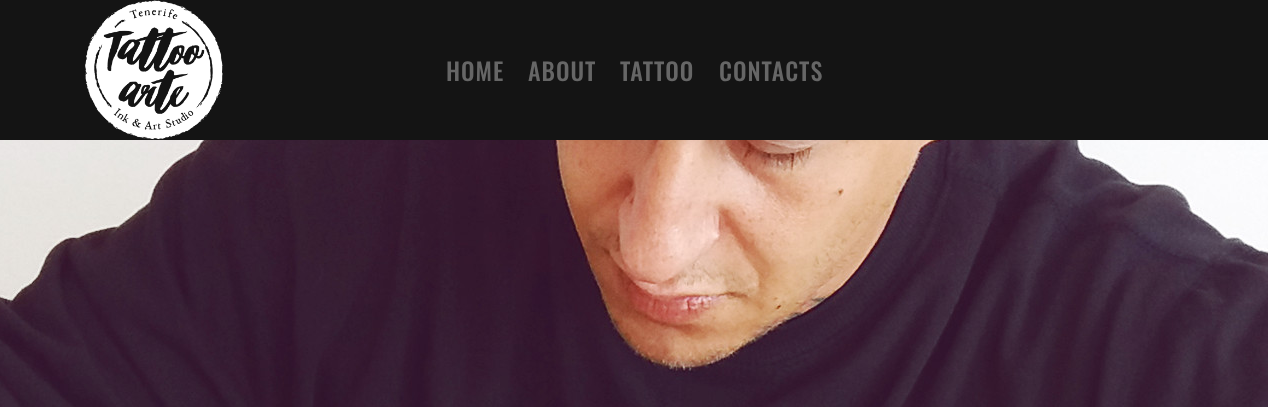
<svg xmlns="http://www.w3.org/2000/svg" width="1268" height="407">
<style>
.a{font:500 24px Oswald;letter-spacing:1px;fill:#666}
</style>
<rect width="100%" height="100%" fill="#fff"/>
<path fill="#141414" d="M0 0h1268v140H0z"/>
<image href="1.png" x="85" y="0" width="138" height="140"/>
<image href="2.png" x="0" y="140" width="1268" height="267"/>
<text class="a" x="446" y="81">HOME</text>
<text class="a" x="528" y="81">ABOUT</text>
<text class="a" x="620" y="81">TATTOO</text>
<text class="a" x="719" y="81">CONTACTS</text>
</svg>
